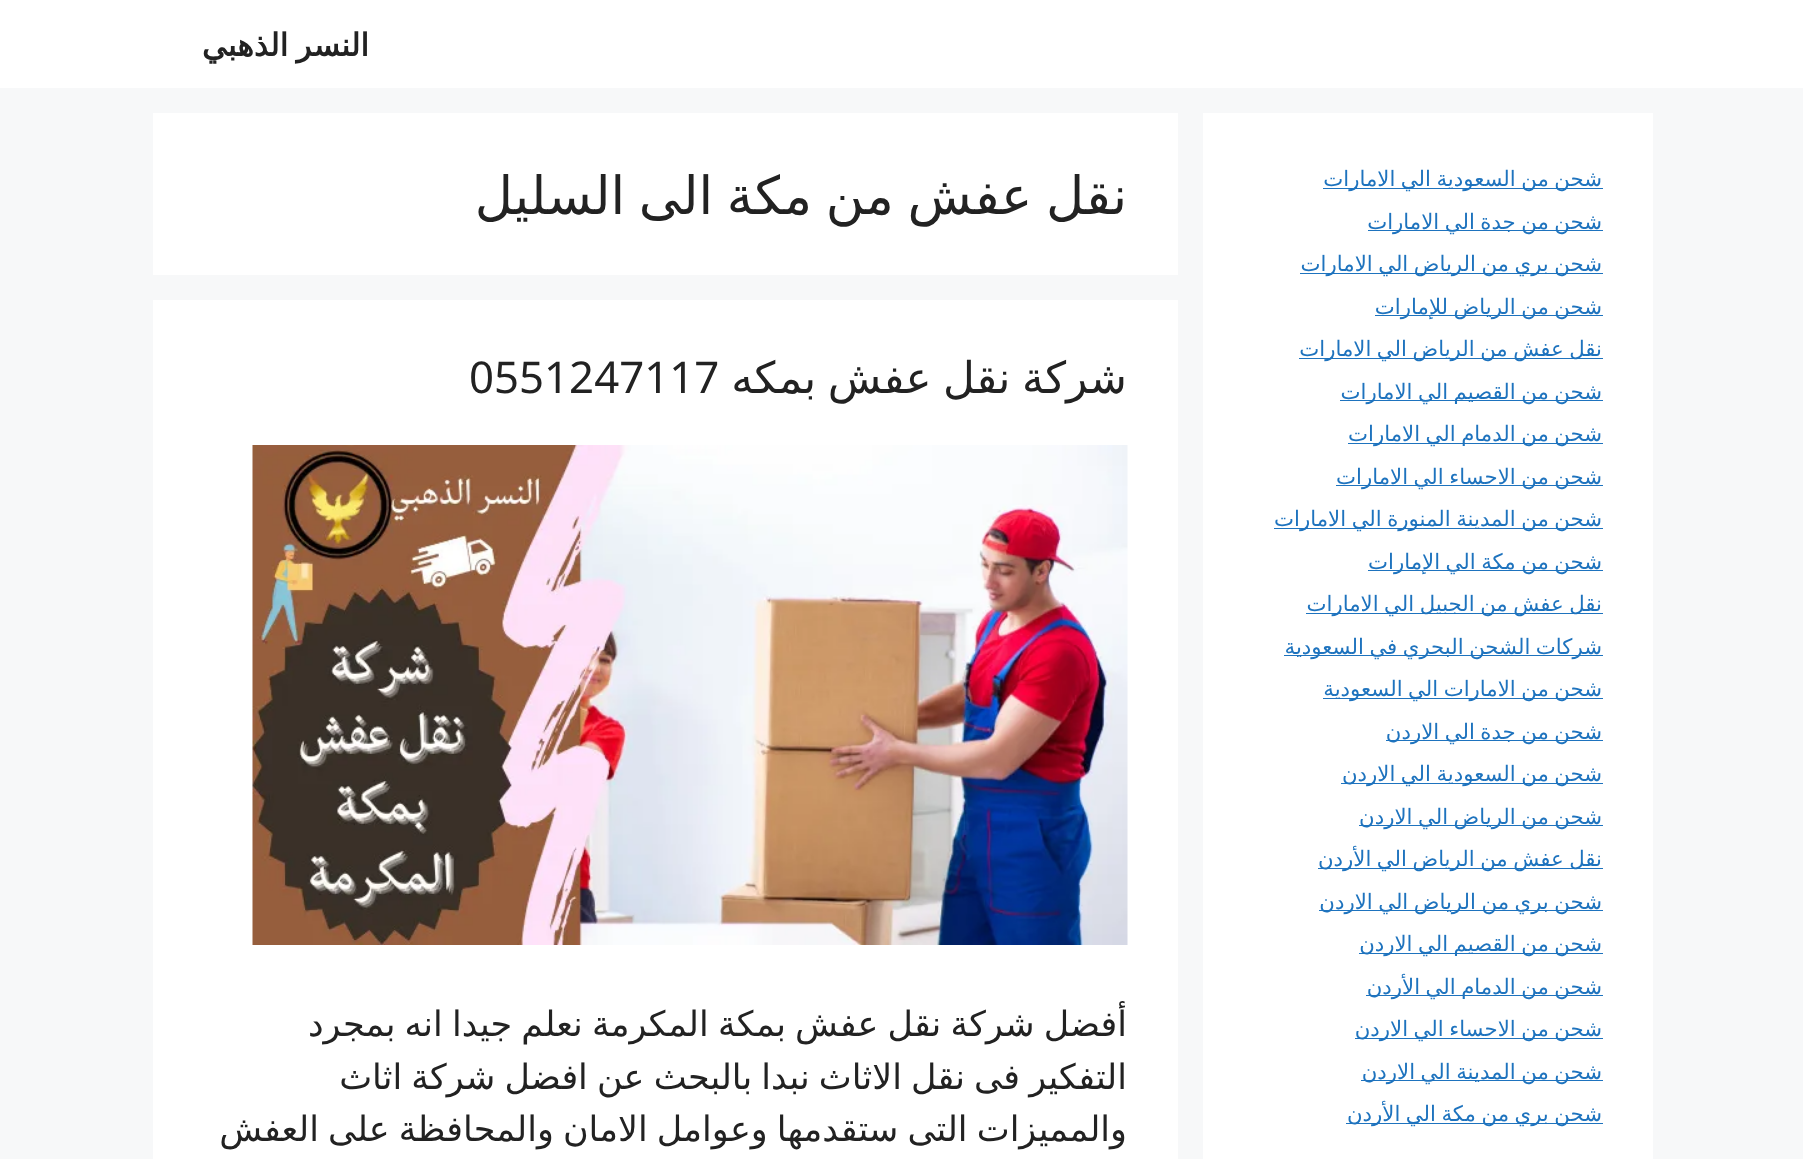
<svg xmlns="http://www.w3.org/2000/svg" width="1803" height="1159">
<style>
.a{font:bold 31.25px DejaVu Sans;direction:rtl;fill:#222}
.b{font:21.25px DejaVu Sans;direction:rtl;fill:#1e73be}
.c{font:52.5px DejaVu Sans;direction:rtl;fill:#222}
.d{font:43.75px DejaVu Sans;direction:rtl;fill:#222}
.e{font:43.75px Noto Sans;fill:#222}
.f{font:35px DejaVu Sans;direction:rtl;fill:#222}
</style>
<rect width="100%" height="100%" fill="#f7f8f9"/>
<path fill="#fff" d="M0 0h1803v88H0z"/>
<path fill="#fff" d="M1203 113h450v1046H1203z"/>
<path fill="#1e73be" d="M1323 188h280v1H1323z"/>
<path fill="#1e73be" d="M1368 230h235v1H1368z"/>
<path fill="#1e73be" d="M1300 273h303v1H1300z"/>
<path fill="#1e73be" d="M1375 315h228v1H1375z"/>
<path fill="#1e73be" d="M1299 358h304v1H1299z"/>
<path fill="#1e73be" d="M1340 400h263v1H1340z"/>
<path fill="#1e73be" d="M1348 443h255v1H1348z"/>
<path fill="#1e73be" d="M1336 485h267v1H1336z"/>
<path fill="#1e73be" d="M1274 528h329v1H1274z"/>
<path fill="#1e73be" d="M1368 570h235v1H1368z"/>
<path fill="#1e73be" d="M1306 613h297v1H1306z"/>
<path fill="#1e73be" d="M1284 655h319v1H1284z"/>
<path fill="#1e73be" d="M1323 698h280v1H1323z"/>
<path fill="#1e73be" d="M1386 740h217v1H1386z"/>
<path fill="#1e73be" d="M1341 783h262v1H1341z"/>
<path fill="#1e73be" d="M1359 825h244v1H1359z"/>
<path fill="#1e73be" d="M1318 868h285v1H1318z"/>
<path fill="#1e73be" d="M1319 910h284v1H1319z"/>
<path fill="#1e73be" d="M1359 953h244v1H1359z"/>
<path fill="#1e73be" d="M1366 995h237v1H1366z"/>
<path fill="#1e73be" d="M1355 1038h248v1H1355z"/>
<path fill="#1e73be" d="M1361 1080h242v1H1361z"/>
<path fill="#1e73be" d="M1346 1123h257v1H1346z"/>
<path fill="#fff" d="M153 113h1025v162H153z"/>
<path fill="#fff" d="M153 300h1025v859H153z"/>
<image href="1.png" x="252" y="445" width="876" height="500"/>
<text class="a" x="369" y="56" word-spacing="-2">النسر الذهبي</text>
<text class="b" x="1602" y="186" word-spacing="-1.25">شحن من السعودية الي الامارات</text>
<text class="b" x="1602" y="229" word-spacing="-1.25">شحن من جدة الي الامارات</text>
<text class="b" x="1602" y="271" word-spacing="-1.25">شحن بري من الرياض الي الامارات</text>
<text class="b" x="1602" y="314" word-spacing="-1.25">شحن من الرياض للإمارات</text>
<text class="b" x="1602" y="356" word-spacing="-1.25">نقل عفش من الرياض الي الامارات</text>
<text class="b" x="1602" y="399" word-spacing="-1.25">شحن من القصيم الي الامارات</text>
<text class="b" x="1602" y="441" word-spacing="-1.25">شحن من الدمام الي الامارات</text>
<text class="b" x="1602" y="484" word-spacing="-1.25">شحن من الاحساء الي الامارات</text>
<text class="b" x="1602" y="526" word-spacing="-1.25">شحن من المدينة المنورة الي الامارات</text>
<text class="b" x="1602" y="569" word-spacing="-1.25">شحن من مكة الي الإمارات</text>
<text class="b" x="1602" y="611" word-spacing="-1.25">نقل عفش من الجبيل الي الامارات</text>
<text class="b" x="1602" y="654" word-spacing="-1.25">شركات الشحن البحري في السعودية</text>
<text class="b" x="1602" y="696" word-spacing="-1.25">شحن من الامارات الي السعودية</text>
<text class="b" x="1602" y="739" word-spacing="-1.25">شحن من جدة الي الاردن</text>
<text class="b" x="1602" y="781" word-spacing="-1.25">شحن من السعودية الي الاردن</text>
<text class="b" x="1602" y="824" word-spacing="-1.25">شحن من الرياض الي الاردن</text>
<text class="b" x="1602" y="866" word-spacing="-1.25">نقل عفش من الرياض الي الأردن</text>
<text class="b" x="1602" y="909" word-spacing="-1.25">شحن بري من الرياض الي الاردن</text>
<text class="b" x="1602" y="951" word-spacing="-1.25">شحن من القصيم الي الاردن</text>
<text class="b" x="1602" y="994" word-spacing="-1.25">شحن من الدمام الي الأردن</text>
<text class="b" x="1602" y="1036" word-spacing="-1.25">شحن من الاحساء الي الاردن</text>
<text class="b" x="1602" y="1079" word-spacing="-1.25">شحن من المدينة الي الاردن</text>
<text class="b" x="1602" y="1121" word-spacing="-1.25">شحن بري من مكة الي الأردن</text>
<text class="c" x="1127" y="214" word-spacing="-3">نقل عفش من مكة الى السليل</text>
<text class="d" x="1127" y="393" word-spacing="-2.5">شركة نقل عفش بمكه</text>
<text class="e" x="469" y="393">0551247117</text>
<text class="f" x="1127" y="1036" word-spacing="-2">أفضل شركة نقل عفش بمكة المكرمة نعلم جيدا انه بمجرد</text>
<text class="f" x="1127" y="1089" word-spacing="-2">التفكير فى نقل الاثاث نبدا بالبحث عن افضل شركة اثاث</text>
<text class="f" x="1127" y="1141" word-spacing="-2">والمميزات التى ستقدمها وعوامل الامان والمحافظة على العفش</text>
</svg>
